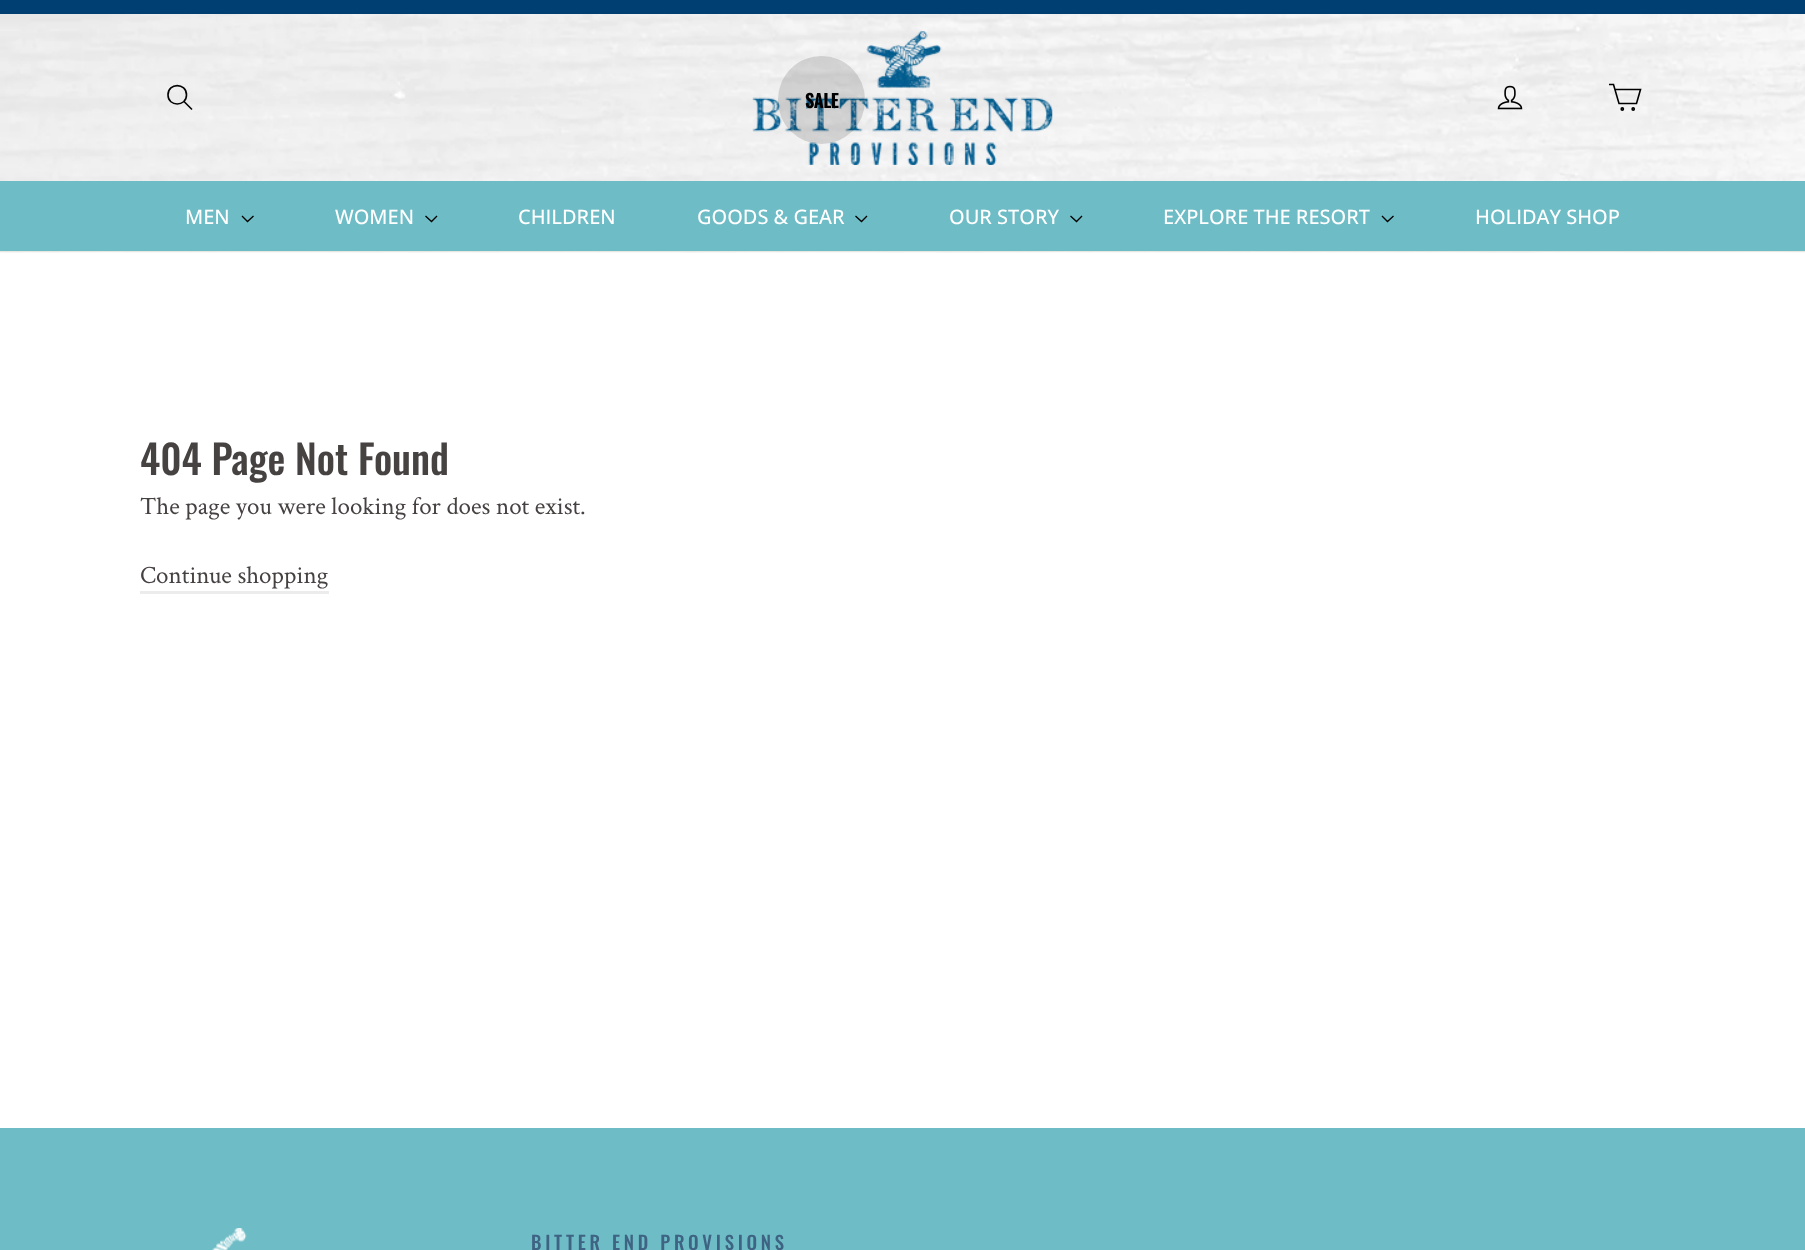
<svg xmlns="http://www.w3.org/2000/svg" width="1805" height="1250">
<style>
.a{font:bold 18px Oswald;fill:#000}
.b{font:500 20px Open Sans;fill:#fff}
.c{font:500 40px Oswald;fill:#474242}
.d{font:25px Crimson Text;fill:#474242}
.e{font:500 18.75px Oswald;letter-spacing:3.75px;fill:#3e6383}
</style>
<rect width="100%" height="100%" fill="#fff"/>
<path fill="#003f72" d="M0 0h1805v14H0z"/>
<image href="1.png" x="0" y="14" width="1805" height="239"/>
<path fill="#e8e8e1" d="M0 251h1805v1H0z"/>
<path fill="none" stroke="#040404" stroke-width="1.6" d="M186.5 95c0 12-18.5 12-18.5 0c0-12.5 18.5-12.5 18.5 0zm5.5 14.5l-8-8"/>
<image href="2.png" x="752" y="31" width="301" height="134"/>
<rect fill="#00000021" x="778" y="56" width="87" height="88" rx="43.5"/>
<image href="3.png" x="1497" y="85" width="26" height="25"/>
<path fill="none" stroke="#000" stroke-width="1.6" d="M1615 89.5h25.5l-4 14h-17.5l-5.5-19h-4.5"/>
<circle fill="none" stroke="#000" stroke-width="1.6" cx="1622.3" cy="109" r="1.1"/>
<circle fill="none" stroke="#000" stroke-width="1.6" cx="1633.2" cy="109" r="1.1"/>
<path fill="#6dbcc6" d="M0 181h1805v70H0z"/>
<path fill="none" stroke="#000" stroke-width="1.3" d="M242 216l5.5 5.5l6-5.5"/>
<path fill="none" stroke="#000" stroke-width="1.3" d="M425.5 216l6 5.5l5.5-5.5"/>
<path fill="none" stroke="#000" stroke-width="1.3" d="M855.5 216l6 5.5l5.5-5.5"/>
<path fill="none" stroke="#000" stroke-width="1.3" d="M1070.5 216l6 5.5l5.5-5.5"/>
<path fill="none" stroke="#000" stroke-width="1.3" d="M1382 216l5.5 5.5l6-5.5"/>
<path fill="#edecec" d="M140 591h189v3H140z"/>
<path fill="#6dbcc6" d="M0 1128h1805v122H0z"/>
<image href="4.png" x="212" y="1228" width="35" height="22"/>
<text class="a" x="805" y="108">SALE</text>
<text class="b" x="185" y="224">MEN</text>
<text class="b" x="335" y="224">WOMEN</text>
<text class="b" x="518" y="224">CHILDREN</text>
<text class="b" x="697" y="224">GOODS &amp; GEAR</text>
<text class="b" x="949" y="224">OUR STORY</text>
<text class="b" x="1163" y="224">EXPLORE THE RESORT</text>
<text class="b" x="1475" y="224">HOLIDAY SHOP</text>
<text class="c" x="140" y="475">404 Page Not Found</text>
<text class="d" x="140" y="514">The page you were looking for does not exist.</text>
<text class="d" x="140" y="583">Continue shopping</text>
<text class="e" x="531" y="1250">BITTER END PROVISIONS</text>
</svg>
